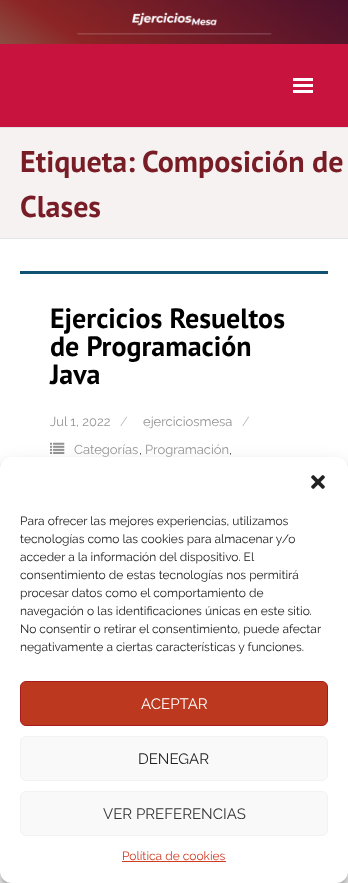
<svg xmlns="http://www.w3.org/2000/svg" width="348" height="883">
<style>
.a{font:bold 30px PT Sans;fill:#781d26}
.b{font:bold 28px PT Sans;fill:#000}
.c{font:13px Raleway;fill:#959595}
.d{font:300 13px Raleway;fill:#aaa}
.e{font:300 13px Raleway;fill:#000}
.f{font:12px Raleway;fill:#222}
.g{font:15px Raleway;fill:#fff}
.h{font:15px Raleway;fill:#222}
.i{font:15px Raleway;fill:#333}
.j{font:12px Raleway;fill:#d13b21}
</style>
<rect width="100%" height="100%" fill="#fff"/>
<image href="1.png" x="0" y="0" width="348" height="44"/>
<path fill="#c8133e" d="M0 44h348v83H0z"/>
<path fill="#e1e1e1" d="M0 127h348v1H0z"/>
<path fill="#fff" d="M293 78h20v3H293z"/>
<path fill="#fff" d="M293 84h20v3H293z"/>
<path fill="#fff" d="M293 90h20v3H293z"/>
<path fill="#f7f2f2" d="M0 128h348v110H0z"/>
<path fill="#e5e5e5" d="M0 238h348v1H0z"/>
<path fill="#115172" d="M20 271h308v3H20z"/>
<image href="2.png" x="50" y="442" width="15" height="12"/>
<rect fill="#0000003b" filter="blur(3px)" y="463" width="348" height="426" rx="12"/>
<rect fill="#00000030" filter="blur(10px)" y="467" width="348" height="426" rx="12"/>
<rect fill="#fff" y="457" width="348" height="426" rx="12"/>
<image href="3.png" x="311" y="475" width="14" height="14"/>
<rect fill="#bc381e" stroke="#a81917" x="20.5" y="681.5" width="307" height="44" rx="5.5"/>
<rect fill="#f9f9f9" stroke="#f2f2f2" x="20.5" y="736.5" width="307" height="44" rx="5.5"/>
<rect fill="#f9f9f9" stroke="#f2f2f2" x="20.5" y="791.5" width="307" height="44" rx="5.5"/>
<path fill="#d13b21" d="M122 861h104v1H122z"/>
<text class="a" x="20" y="172">Etiqueta:</text>
<text class="a" x="142" y="172">Composición de</text>
<text class="a" x="20" y="217">Clases</text>
<text class="b" x="50" y="328">Ejercicios Resueltos</text>
<text class="b" x="50" y="356">de Programación</text>
<text class="b" x="50" y="384">Java</text>
<text class="c" x="50" y="426">Jul 1, 2022</text>
<text class="d" x="120" y="426">/</text>
<text class="c" x="143" y="426">ejerciciosmesa</text>
<text class="d" x="242" y="426">/</text>
<text class="c" x="74" y="454">Categorías</text>
<text class="e" x="139" y="454">,</text>
<text class="c" x="145" y="454">Programación</text>
<text class="e" x="229" y="454">,</text>
<text class="f" x="20" y="525">Para ofrecer las mejores experiencias, utilizamos</text>
<text class="f" x="20" y="543">tecnologías como las cookies para almacenar y/o</text>
<text class="f" x="20" y="561">acceder a la información del dispositivo. El</text>
<text class="f" x="20" y="579">consentimiento de estas tecnologías nos permitirá</text>
<text class="f" x="20" y="597">procesar datos como el comportamiento de</text>
<text class="f" x="20" y="615">navegación o las identificaciones únicas en este sitio.</text>
<text class="f" x="20" y="633">No consentir o retirar el consentimiento, puede afectar</text>
<text class="f" x="20" y="651">negativamente a ciertas características y funciones.</text>
<text class="g" x="141" y="709">ACEPTAR</text>
<text class="h" x="138" y="764">DENEGAR</text>
<text class="i" x="103" y="819">VER PREFERENCIAS</text>
<text class="j" x="122" y="860">Política de cookies</text>
</svg>
